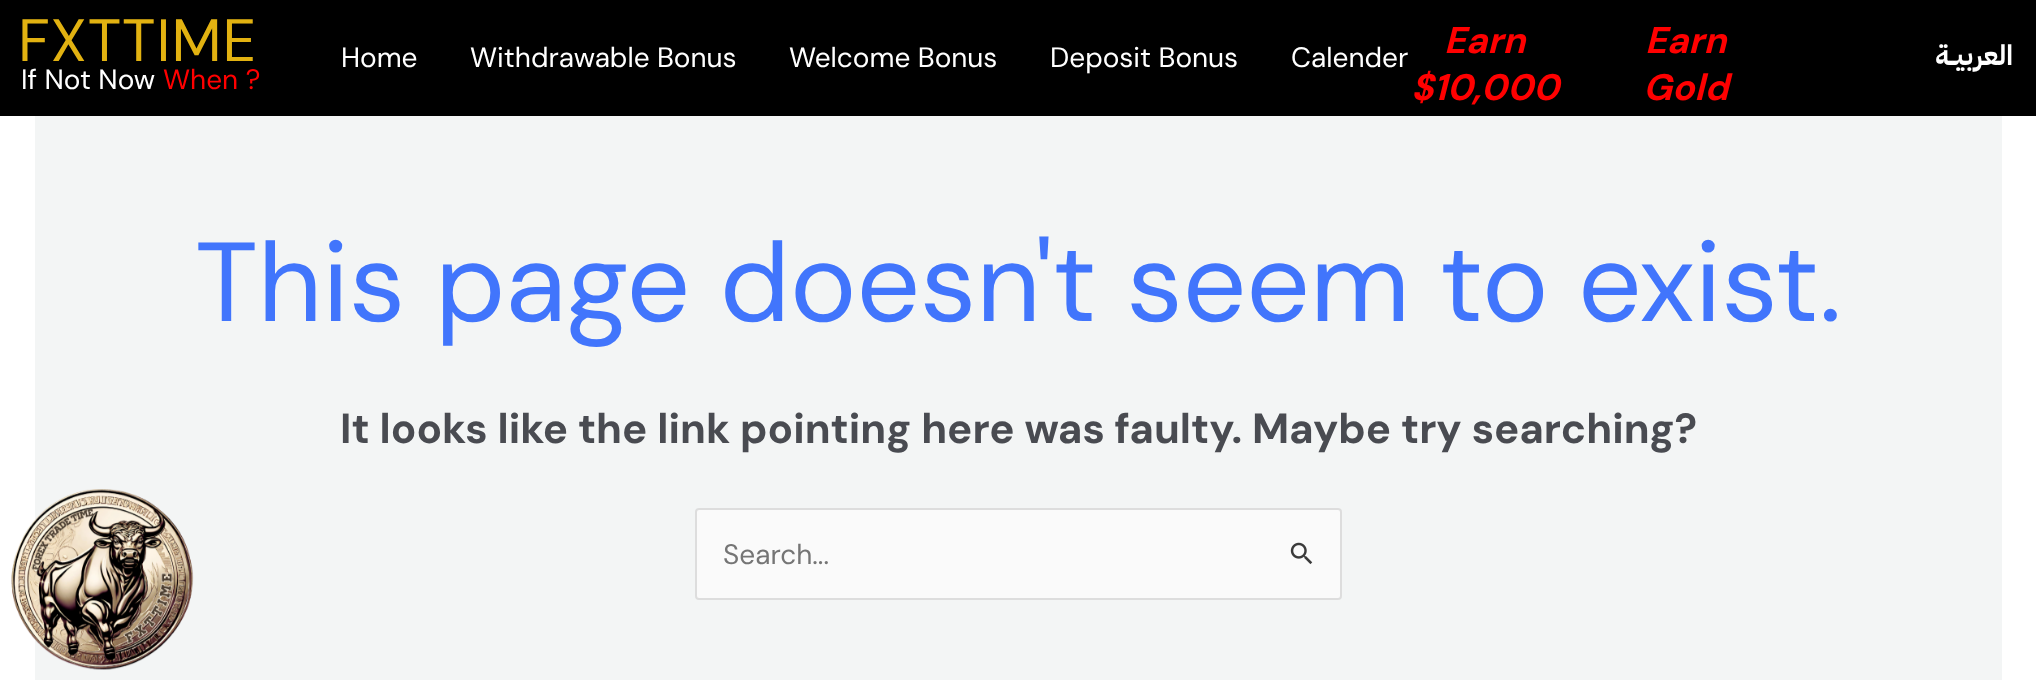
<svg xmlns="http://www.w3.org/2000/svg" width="2036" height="680">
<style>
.a{font:59.5px DM Sans;letter-spacing:1px;fill:#e2b211}
.b{font:28px DM Sans;fill:#fff}
.c{font:28px DM Sans;fill:#f00}
.d{font:italic bold 37px DM Sans;fill:#f00}
.e{font:bold 28px IBM Plex Sans Arabic;direction:rtl;fill:#fff}
.f{font:112px DM Sans;fill:#4175fc}
.g{font:bold 42px DM Sans;fill:#494b51}
.h{font:28px DM Sans;fill:#757575}
</style>
<rect width="100%" height="100%" fill="#fff"/>
<path fill="#f3f5f5" d="M35 116h1967v564H35z"/>
<image href="1.png" x="11" y="489" width="183" height="181"/>
<path fill="#000" d="M0 0h2036v116H0z"/>
<rect fill="#fafafa" stroke="#ddd" stroke-width="2" x="696" y="509" width="645" height="90" rx="3"/>
<image href="2.png" x="1290" y="542" width="23" height="23"/>
<text class="a" x="18" y="61">FXTTIME</text>
<text class="b" x="21" y="89">If Not Now</text>
<text class="c" x="163" y="89">When ?</text>
<text class="d" x="1444" y="53">Earn</text>
<text class="d" x="1411" y="100">$10,000</text>
<text class="d" x="1645" y="53">Earn</text>
<text class="d" x="1643" y="100">Gold</text>
<text class="e" x="2013" y="65">العربيــة</text>
<text class="b" x="341" y="67">Home</text>
<text class="b" x="470" y="67">Withdrawable Bonus</text>
<text class="b" x="789" y="67">Welcome Bonus</text>
<text class="b" x="1050" y="67">Deposit Bonus</text>
<text class="b" x="1291" y="67">Calender</text>
<text class="f" x="195" y="321">This page doesn't seem to exist.</text>
<text class="g" x="340" y="443">It looks like the link pointing here was faulty. Maybe try searching?</text>
<text class="h" x="723" y="564">Search...</text>
</svg>
